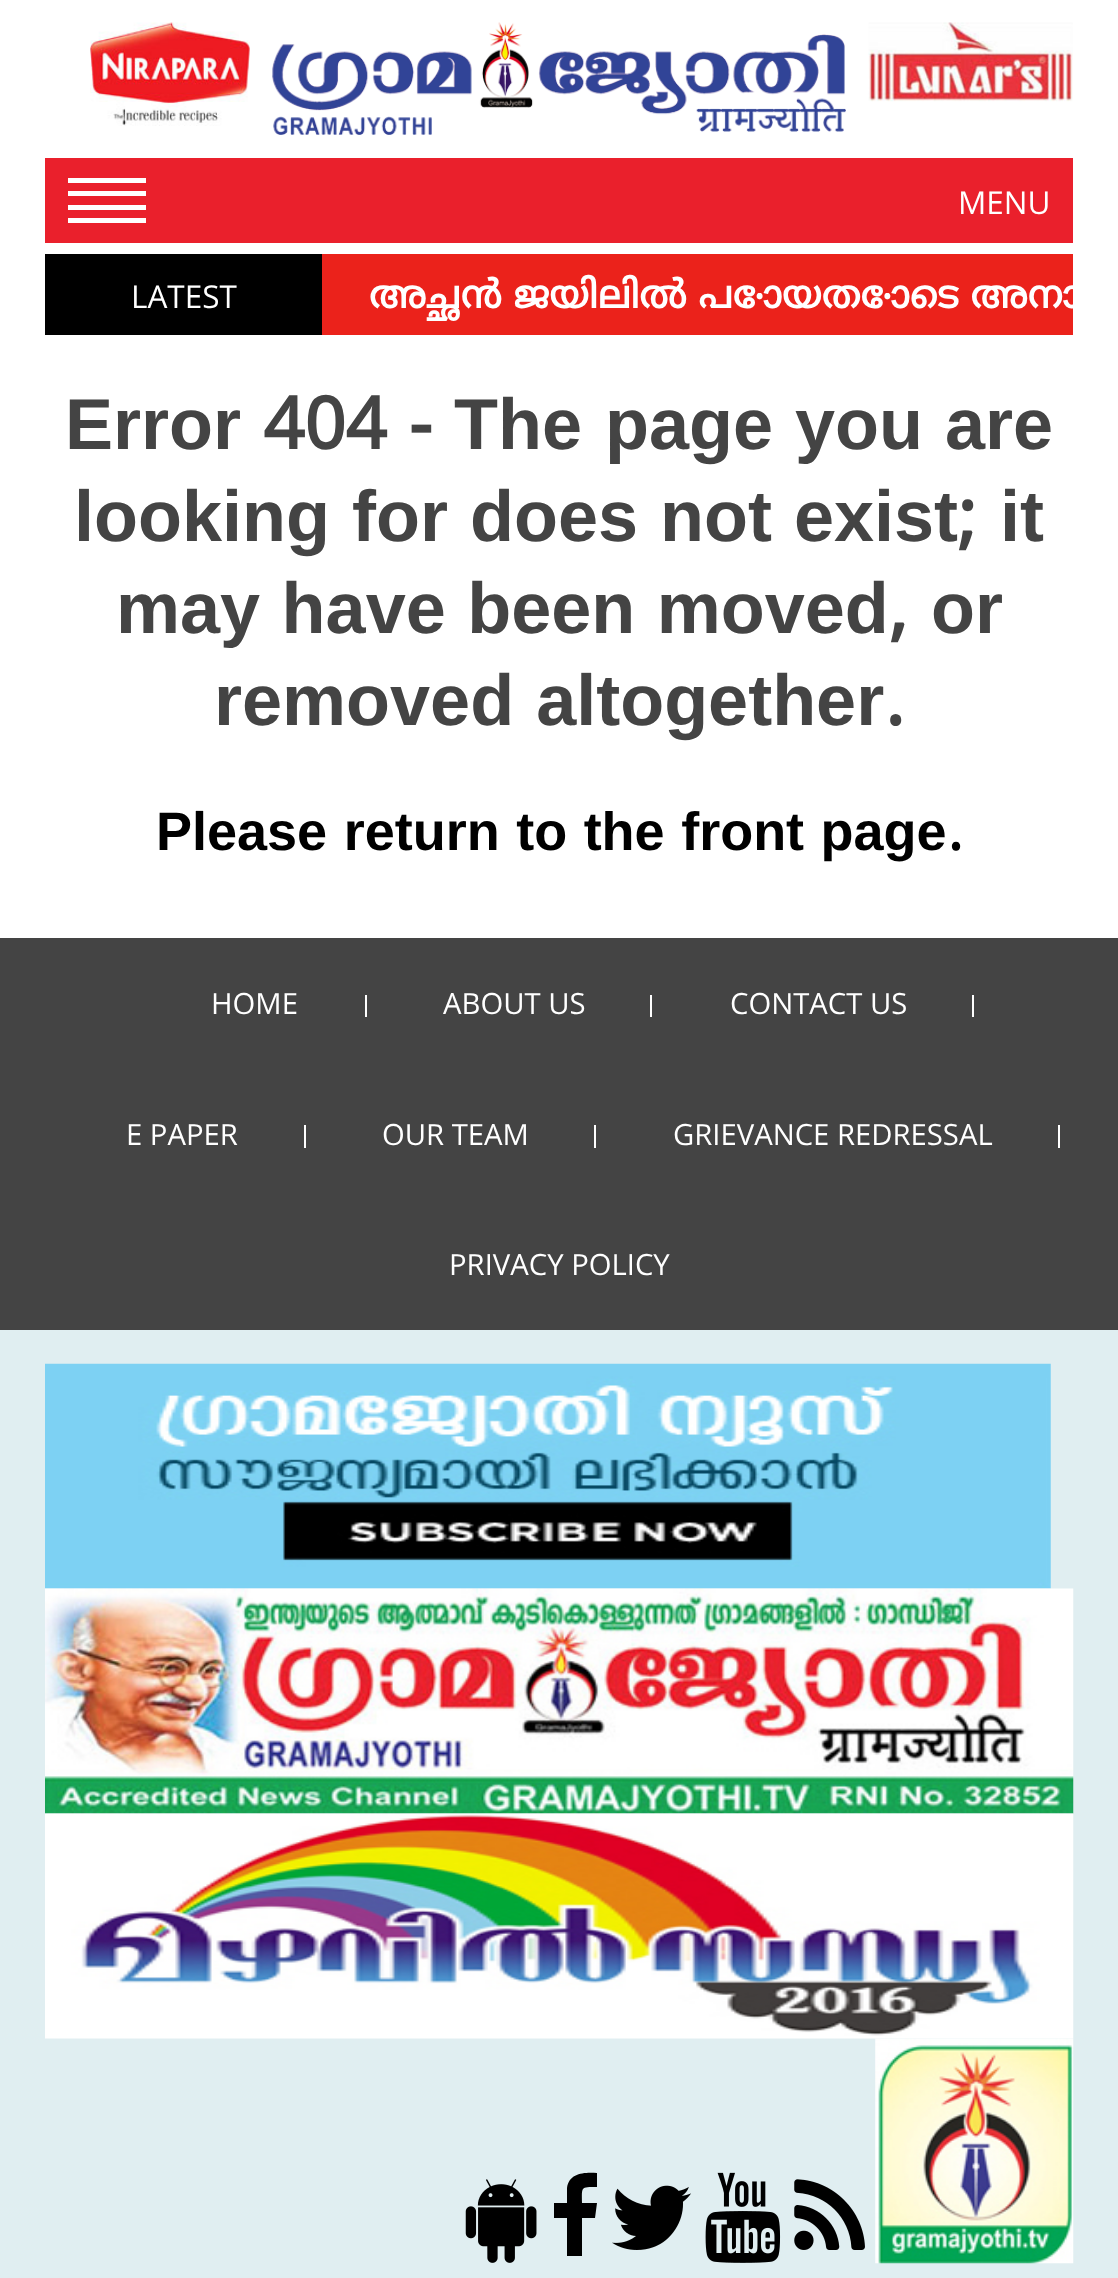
<svg xmlns="http://www.w3.org/2000/svg" width="1118" height="2278">
<style>
.a{font:31.5px Open Sans;fill:#fff}
.b{font:bold 38.25px Noto Sans Malayalam;fill:#fff}
.c{font:bold 72px Liberation Sans;fill:#444}
.d{font:bold 72px Noto Sans Malayalam;fill:#444}
.e{font:bold 54px Liberation Sans;fill:#000}
.f{font:bold 54px Noto Sans Malayalam;fill:#000}
.g{font:29.25px Open Sans;fill:#fff}
</style>
<rect width="100%" height="100%" fill="#fff"/>
<image href="1.png" x="90" y="22" width="160" height="104"/>
<image href="2.png" x="272" y="22" width="574" height="113"/>
<image href="3.png" x="868" y="22" width="205" height="80"/>
<path fill="#ea202c" d="M45 158h1028v85H45z"/>
<path fill="#fff" d="M68 178h78v5H68z"/>
<path fill="#fff" d="M68 191h78v5H68z"/>
<path fill="#fff" d="M68 205h78v5H68z"/>
<path fill="#fff" d="M68 218h78v5H68z"/>
<path fill="#000" d="M45 254h277v81H45z"/>
<path fill="#eb221b" d="M322 254h751v81H322z"/>
<path fill="#444" d="M0 938h1118v392H0z"/>
<path fill="#fff" d="M365 995h2v22H365z"/>
<path fill="#fff" d="M650 995h2v22H650z"/>
<path fill="#fff" d="M972 995h2v22H972z"/>
<path fill="#fff" d="M304 1125h2v23H304z"/>
<path fill="#fff" d="M594 1125h2v23H594z"/>
<path fill="#fff" d="M1058 1125h2v23H1058z"/>
<path fill="#e0eef1" d="M0 1330h1118v948H0z"/>
<image href="4.png" x="45" y="1363" width="1006" height="226"/>
<image href="5.png" x="45" y="1588" width="1029" height="226"/>
<image href="6.png" x="45" y="1813" width="1029" height="226"/>
<image href="7.png" x="465" y="2179" width="72" height="84"/>
<path fill="#000" d="M597 2173v14c-17 0-15 0-15 16h15l-2 15h-13v38h-15v-38h-13v-15h13v-15c2-15 17-16 30-15z"/>
<image href="8.png" x="612" y="2185" width="79" height="65"/>
<image href="9.png" x="705" y="2172" width="76" height="91"/>
<image href="10.png" x="794" y="2179" width="71" height="71"/>
<image href="11.png" x="875" y="2038" width="199" height="226"/>
<text class="a" x="958" y="214">MENU</text>
<text class="a" x="131" y="308">LATEST</text>
<text class="b" x="369" y="308">അച്ഛന്‍ ജയിലില്‍ പോയതോടെ അനാ</text>
<text class="c" x="65" y="449">Error</text>
<text class="d" x="263" y="449">404 -</text>
<text class="c" x="454" y="449">The</text>
<text class="c" x="605" y="449">page</text>
<text class="c" x="795" y="449">you</text>
<text class="c" x="945" y="449">are</text>
<text class="c" x="74" y="541" word-spacing="2">looking for does not exist</text>
<text class="d" x="957" y="541">;</text>
<text class="c" x="1000" y="541">it</text>
<text class="c" x="116" y="633" word-spacing="1.5">may have been moved</text>
<text class="d" x="889" y="633">,</text>
<text class="c" x="931" y="633">or</text>
<text class="c" x="214" y="725" word-spacing="2">removed altogether</text>
<text class="d" x="885" y="725">.</text>
<text class="e" x="156" y="850" word-spacing="1.5">Please return to the front page</text>
<text class="f" x="948" y="850">.</text>
<text class="g" x="211" y="1014">HOME</text>
<text class="g" x="443" y="1014">ABOUT US</text>
<text class="g" x="730" y="1014">CONTACT US</text>
<text class="g" x="126" y="1145">E PAPER</text>
<text class="g" x="382" y="1145">OUR TEAM</text>
<text class="g" x="673" y="1145">GRIEVANCE REDRESSAL</text>
<text class="g" x="449" y="1275">PRIVACY POLICY</text>
</svg>
